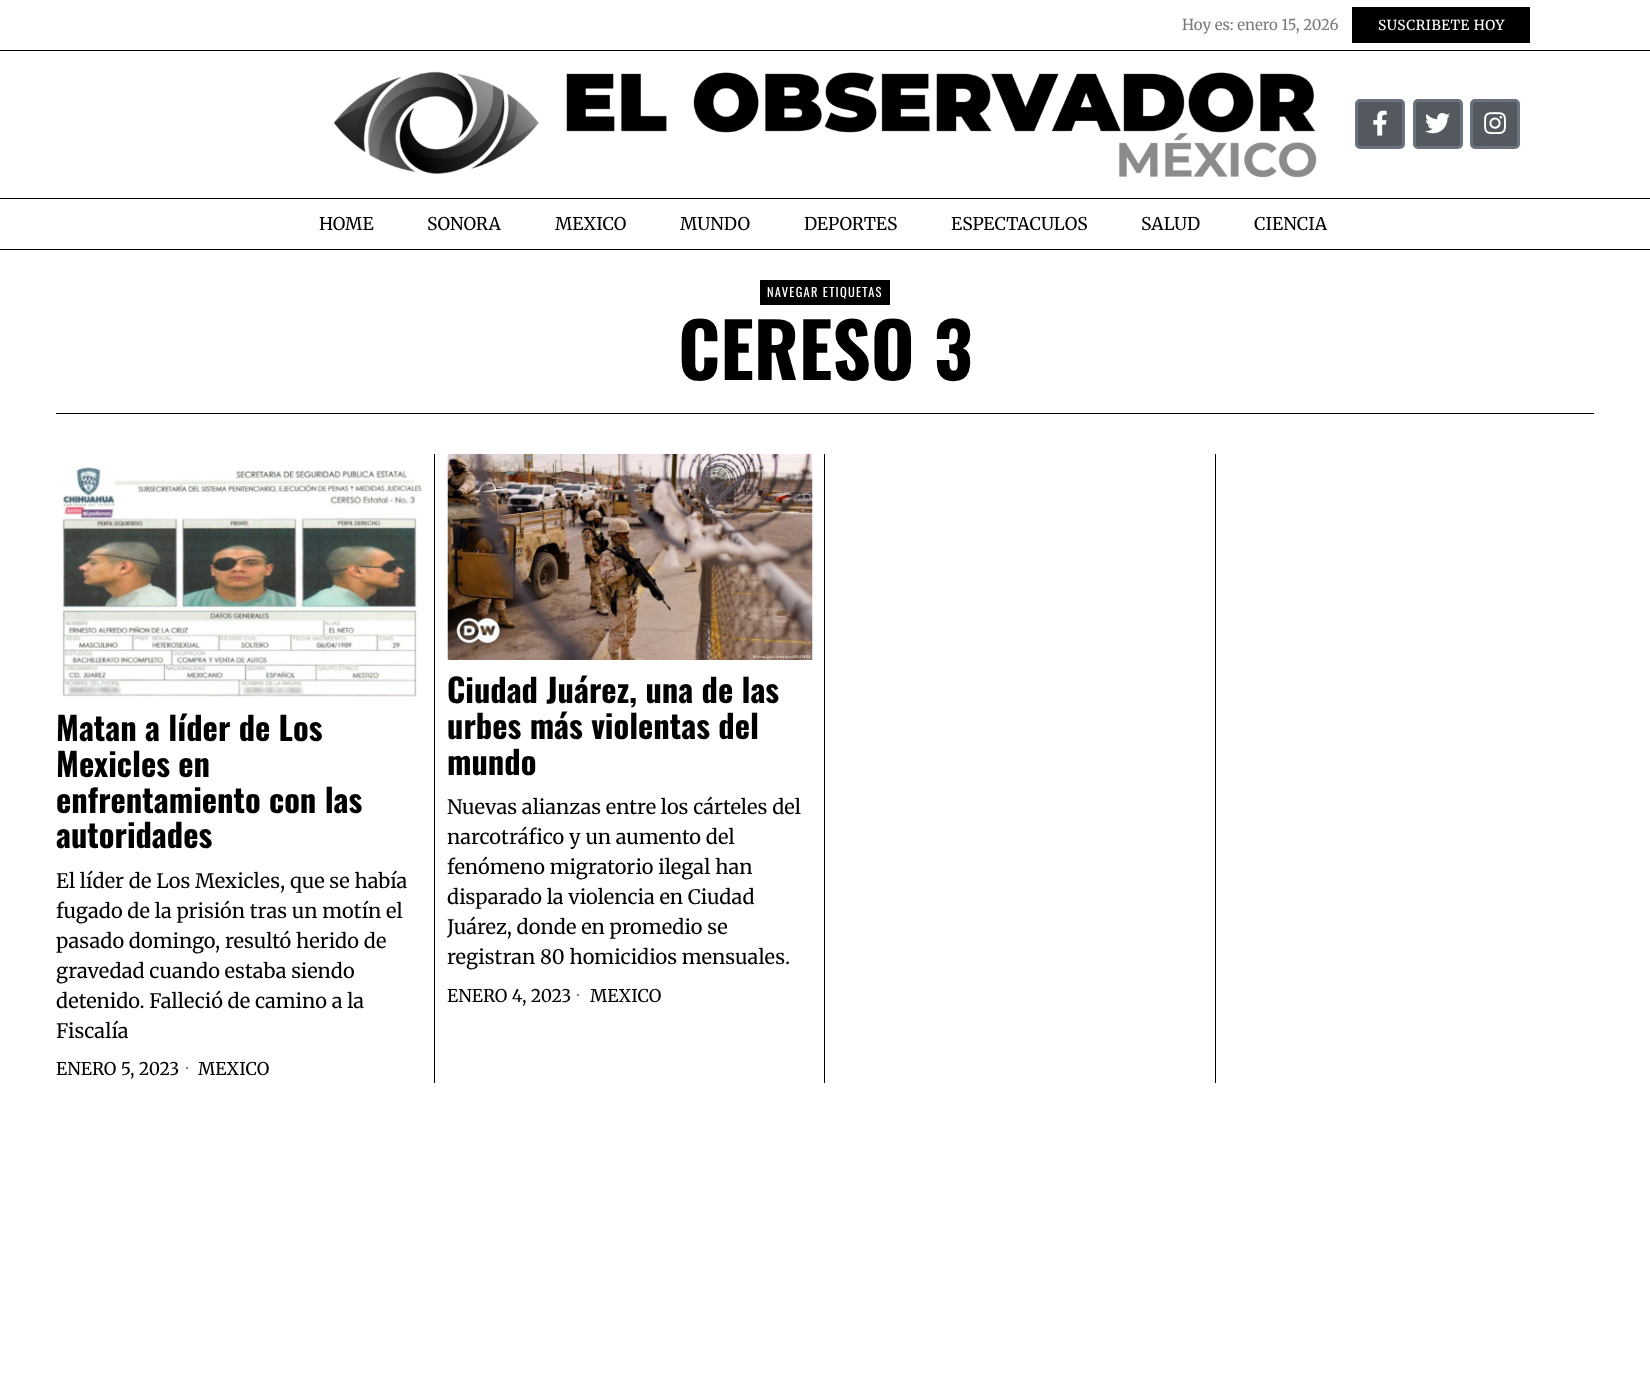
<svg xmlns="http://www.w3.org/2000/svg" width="1650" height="1394">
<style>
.a{font:15px Merriweather;fill:#7a7a7a}
.b{font:13.75px Merriweather;letter-spacing:0.6px;fill:#fff}
.c{font:17.5px Merriweather;fill:#000}
.d{font:12.5px Oswald;letter-spacing:1.25px;fill:#fff}
.e{font:bold 75px Oswald;fill:#000}
.f{font:bold 32.5px Oswald;fill:#000}
.g{font:20px Merriweather;fill:#000}
.h{font:17.5px Merriweather;fill:#808080}
</style>
<rect width="100%" height="100%" fill="#fff"/>
<path fill="#000" d="M1352 7h178v36H1352z"/>
<path fill="#000" d="M0 50h1650v1H0z"/>
<image href="1.png" x="333" y="71" width="984" height="107"/>
<rect fill="#54595f" stroke="#69727d" stroke-width="3" x="1356.5" y="100.5" width="47" height="47" rx="3.5"/>
<image href="2.png" x="1373" y="110" width="14" height="26"/>
<rect fill="#54595f" stroke="#69727d" stroke-width="3" x="1414.5" y="100.5" width="47" height="47" rx="3.5"/>
<image href="3.png" x="1425" y="113" width="25" height="21"/>
<rect fill="#54595f" stroke="#69727d" stroke-width="3" x="1471.5" y="100.5" width="47" height="47" rx="3.5"/>
<image href="4.png" x="1484" y="112" width="22" height="23"/>
<path fill="#000" d="M0 198h1650v1H0z"/>
<path fill="#000" d="M0 249h1650v1H0z"/>
<path fill="#000" d="M56 413h1538v1H56z"/>
<path fill="#000" d="M760 280h130v25H760z"/>
<path fill="#000" d="M434 454h1v629H434z"/>
<path fill="#000" d="M824 454h1v629H824z"/>
<path fill="#000" d="M1215 454h1v629H1215z"/>
<image href="5.png" x="61" y="465" width="361" height="232"/>
<image href="6.png" x="447" y="453" width="366" height="207"/>
<text class="a" x="1182" y="30">Hoy es: enero 15, 2026</text>
<text class="b" x="1378" y="30">SUSCRIBETE HOY</text>
<text class="c" x="319" y="230">HOME</text>
<text class="c" x="427" y="230">SONORA</text>
<text class="c" x="555" y="230">MEXICO</text>
<text class="c" x="680" y="230">MUNDO</text>
<text class="c" x="804" y="230">DEPORTES</text>
<text class="c" x="951" y="230">ESPECTACULOS</text>
<text class="c" x="1141" y="230">SALUD</text>
<text class="c" x="1254" y="230">CIENCIA</text>
<text class="d" x="767" y="297">NAVEGAR ETIQUETAS</text>
<text class="e" x="678" y="380">CERESO 3</text>
<text class="f" x="56" y="741">Matan a líder de Los</text>
<text class="f" x="56" y="777">Mexicles en</text>
<text class="f" x="56" y="813">enfrentamiento con las</text>
<text class="f" x="56" y="848">autoridades</text>
<text class="g" x="56" y="888">El líder de Los Mexicles, que se había</text>
<text class="g" x="56" y="918">fugado de la prisión tras un motín el</text>
<text class="g" x="56" y="948">pasado domingo, resultó herido de</text>
<text class="g" x="56" y="978">gravedad cuando estaba siendo</text>
<text class="g" x="56" y="1008">detenido. Falleció de camino a la</text>
<text class="g" x="56" y="1038">Fiscalía</text>
<text class="c" x="56" y="1075">ENERO 5, 2023</text>
<text class="h" x="186" y="1075">·</text>
<text class="c" x="198" y="1075">MEXICO</text>
<text class="f" x="447" y="703">Ciudad Juárez, una de las</text>
<text class="f" x="447" y="739">urbes más violentas del</text>
<text class="f" x="447" y="775">mundo</text>
<text class="g" x="447" y="814">Nuevas alianzas entre los cárteles del</text>
<text class="g" x="447" y="844">narcotráfico y un aumento del</text>
<text class="g" x="447" y="874">fenómeno migratorio ilegal han</text>
<text class="g" x="447" y="904">disparado la violencia en Ciudad</text>
<text class="g" x="447" y="934">Juárez, donde en promedio se</text>
<text class="g" x="447" y="964">registran 80 homicidios mensuales.</text>
<text class="c" x="447" y="1002">ENERO 4, 2023</text>
<text class="h" x="577" y="1002">·</text>
<text class="c" x="590" y="1002">MEXICO</text>
</svg>
